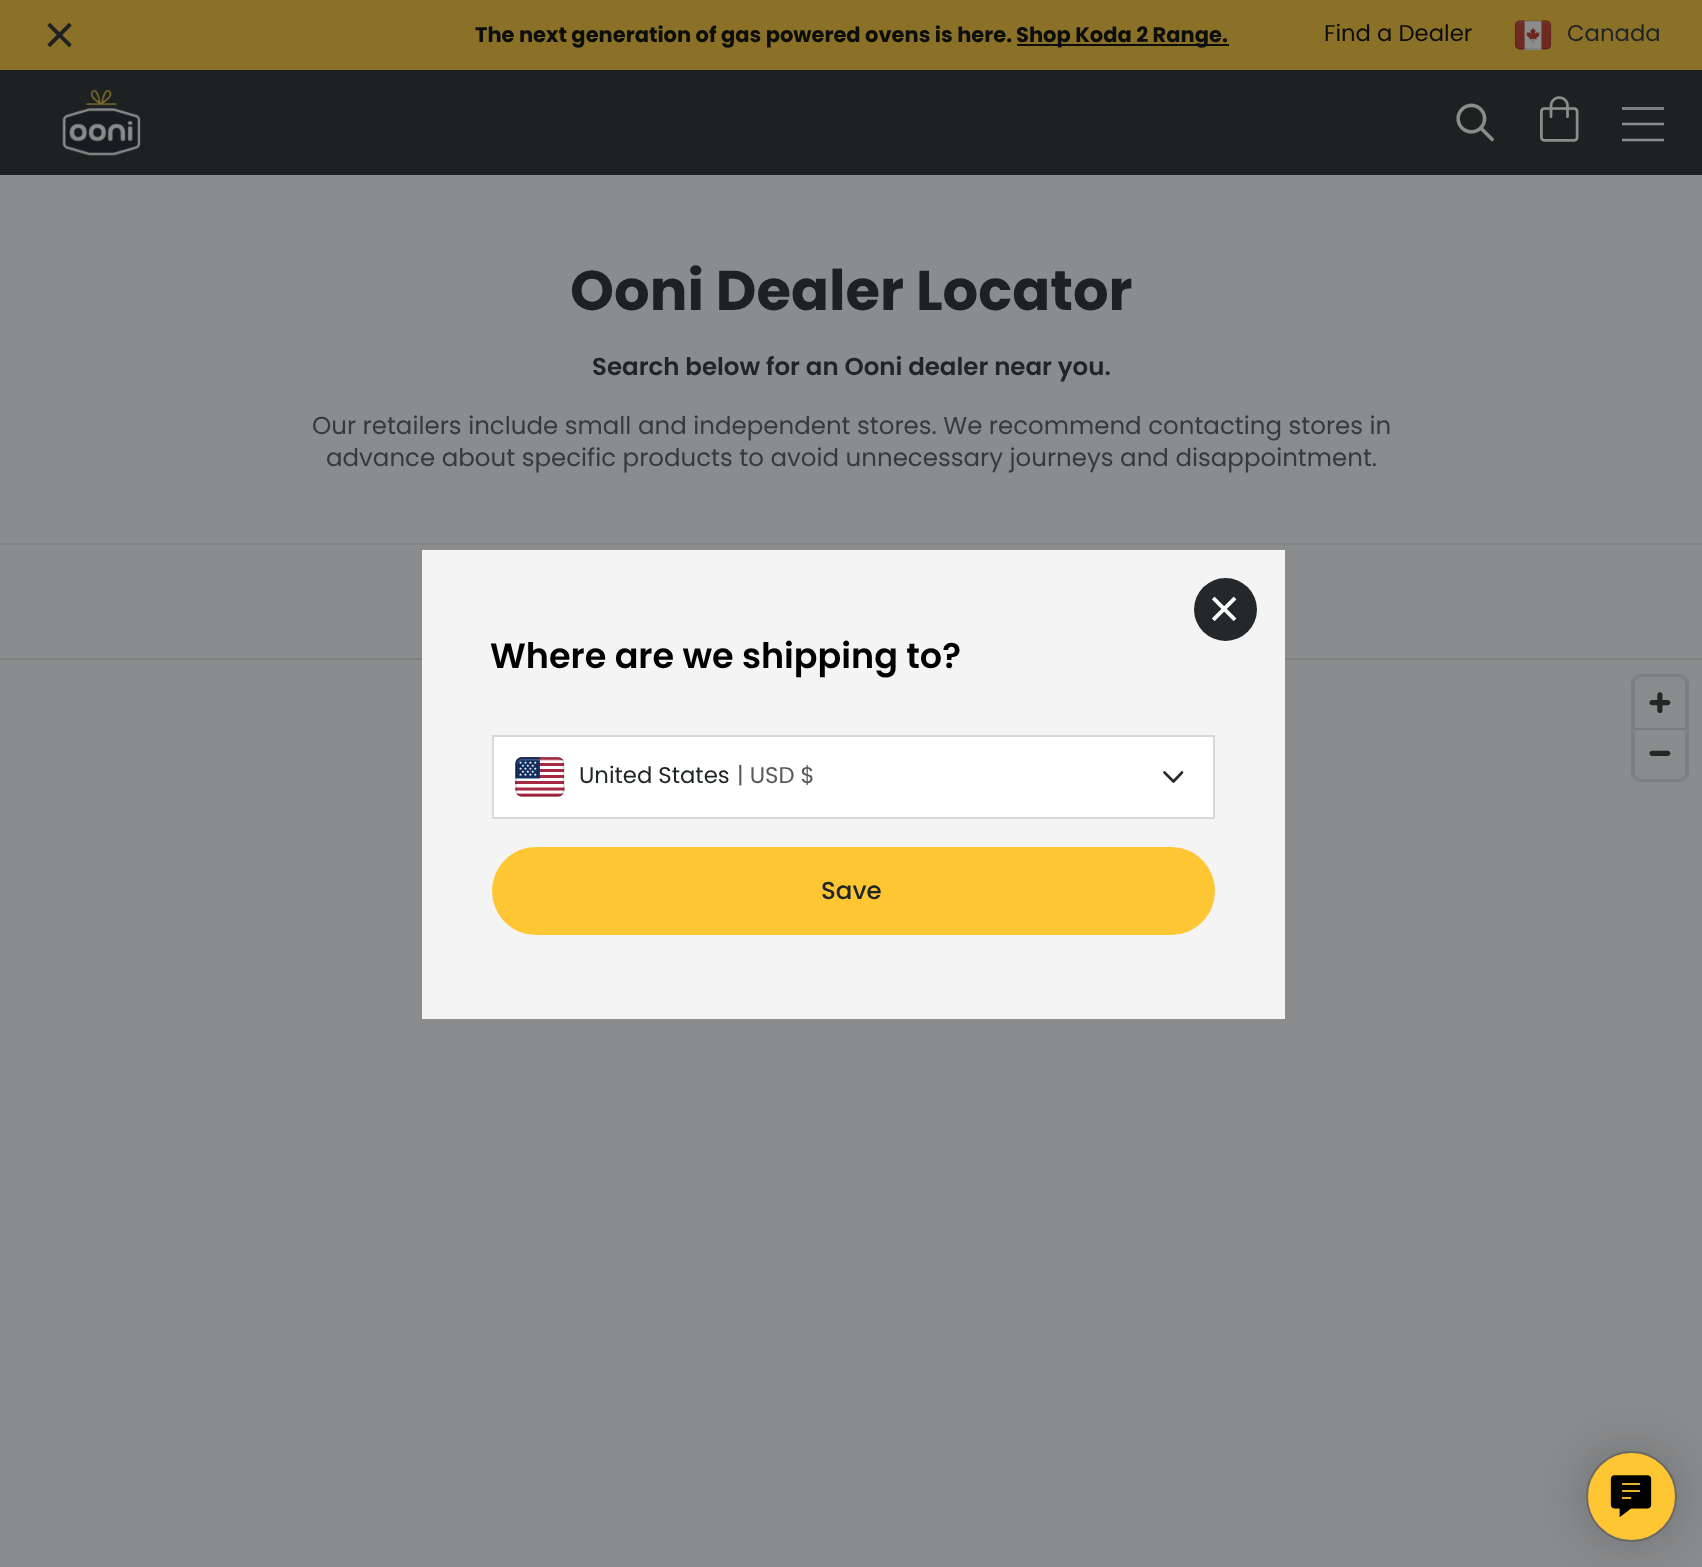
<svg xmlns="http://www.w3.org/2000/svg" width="1702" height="1567">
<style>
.a{font:bold 21px Poppins;fill:#0c0d0d}
.b{font:22.75px Poppins;fill:#0c0d0d}
.c{font:22.75px Poppins;fill:#202528}
.d{font:bold 56px Poppins;fill:#1e2122}
.e{font:600 24.5px Poppins;fill:#202528}
.f{font:24.5px Poppins;fill:#373a3c}
.g{font:600 35px Poppins;fill:#000}
.h{font:22.75px Poppins;fill:#575a5d}
.i{font:500 24.5px Poppins;fill:#202528}
</style>
<rect width="100%" height="100%" fill="#8b8c8d"/>
<path fill="#8b7027" d="M0 0h1702v70H0z"/>
<image href="1.png" x="47" y="22" width="25" height="26"/>
<path fill="#0c0d0d" d="M1017 44h212v2H1017z"/>
<image href="2.png" x="1514" y="20" width="38" height="30"/>
<path fill="#1e2122" d="M0 70h1702v105H0z"/>
<image href="3.png" x="62" y="89" width="79" height="67"/>
<image href="4.png" x="1456" y="103" width="39" height="39"/>
<image href="5.png" x="1540" y="96" width="39" height="46"/>
<path fill="#7d7e7f" d="M1622 107h42v3H1622z"/>
<path fill="none" stroke="#8b8c8d" stroke-width="2.6" d="M1622 124h42m-42 16h42"/>
<path fill="#848585" d="M0 543h1702v2H0z"/>
<path fill="#7f8080" d="M0 658h1702v2H0z"/>
<rect fill="none" stroke="#7e7f80" stroke-width="4" x="1633" y="676" width="54" height="104" rx="9"/>
<rect fill="#8b8c8d" x="1635" y="677" width="50" height="102" rx="7"/>
<image href="6.png" x="1649" y="692" width="22" height="22"/>
<path fill="#7a7b7c" d="M1635 728h50v2H1635z"/>
<image href="7.png" x="1649" y="750" width="22" height="6"/>
<path fill="#f4f4f4" d="M422 550h863v469H422z"/>
<circle fill="#25282a" cx="1225.5" cy="609.5" r="31.5"/>
<image href="8.png" x="1212" y="596" width="25" height="26"/>
<path fill="#fff" stroke="#d8d8d8" stroke-width="2" d="M493 736h721v82H493z"/>
<image href="9.png" x="515" y="757" width="50" height="40"/>
<path fill="none" stroke="#25282a" stroke-width="2.6" stroke-linecap="round" stroke-linejoin="round" d="M1164.5 772.5l9 9l8.5-9"/>
<rect fill="#ffc633" x="492" y="847" width="723" height="88" rx="44"/>
<rect fill="#00000033" filter="blur(26px)" x="1584" y="1449" width="94" height="95" rx="47"/>
<circle fill="#ffc633" stroke="#6b6a67" stroke-width="2" cx="1631.5" cy="1496.5" r="44.5"/>
<image href="10.png" x="1610" y="1475" width="42" height="42"/>
<text class="a" x="475" y="42">The next generation of gas powered ovens is here.</text>
<text class="a" x="1016" y="42">Shop Koda 2 Range.</text>
<text class="b" x="1324" y="41">Find a Dealer</text>
<text class="c" x="1567" y="41">Canada</text>
<text class="d" x="570" y="310">Ooni Dealer Locator</text>
<text class="e" x="592" y="375">Search below for an Ooni dealer near you.</text>
<text class="f" x="312" y="434">Our retailers include small and independent stores. We recommend contacting stores in</text>
<text class="f" x="326" y="466">advance about specific products to avoid unnecessary journeys and disappointment.</text>
<text class="g" x="490" y="668">Where are we shipping to?</text>
<text class="c" x="579" y="783">United States</text>
<text class="h" x="737" y="783">| USD $</text>
<text class="i" x="821" y="899">Save</text>
</svg>
